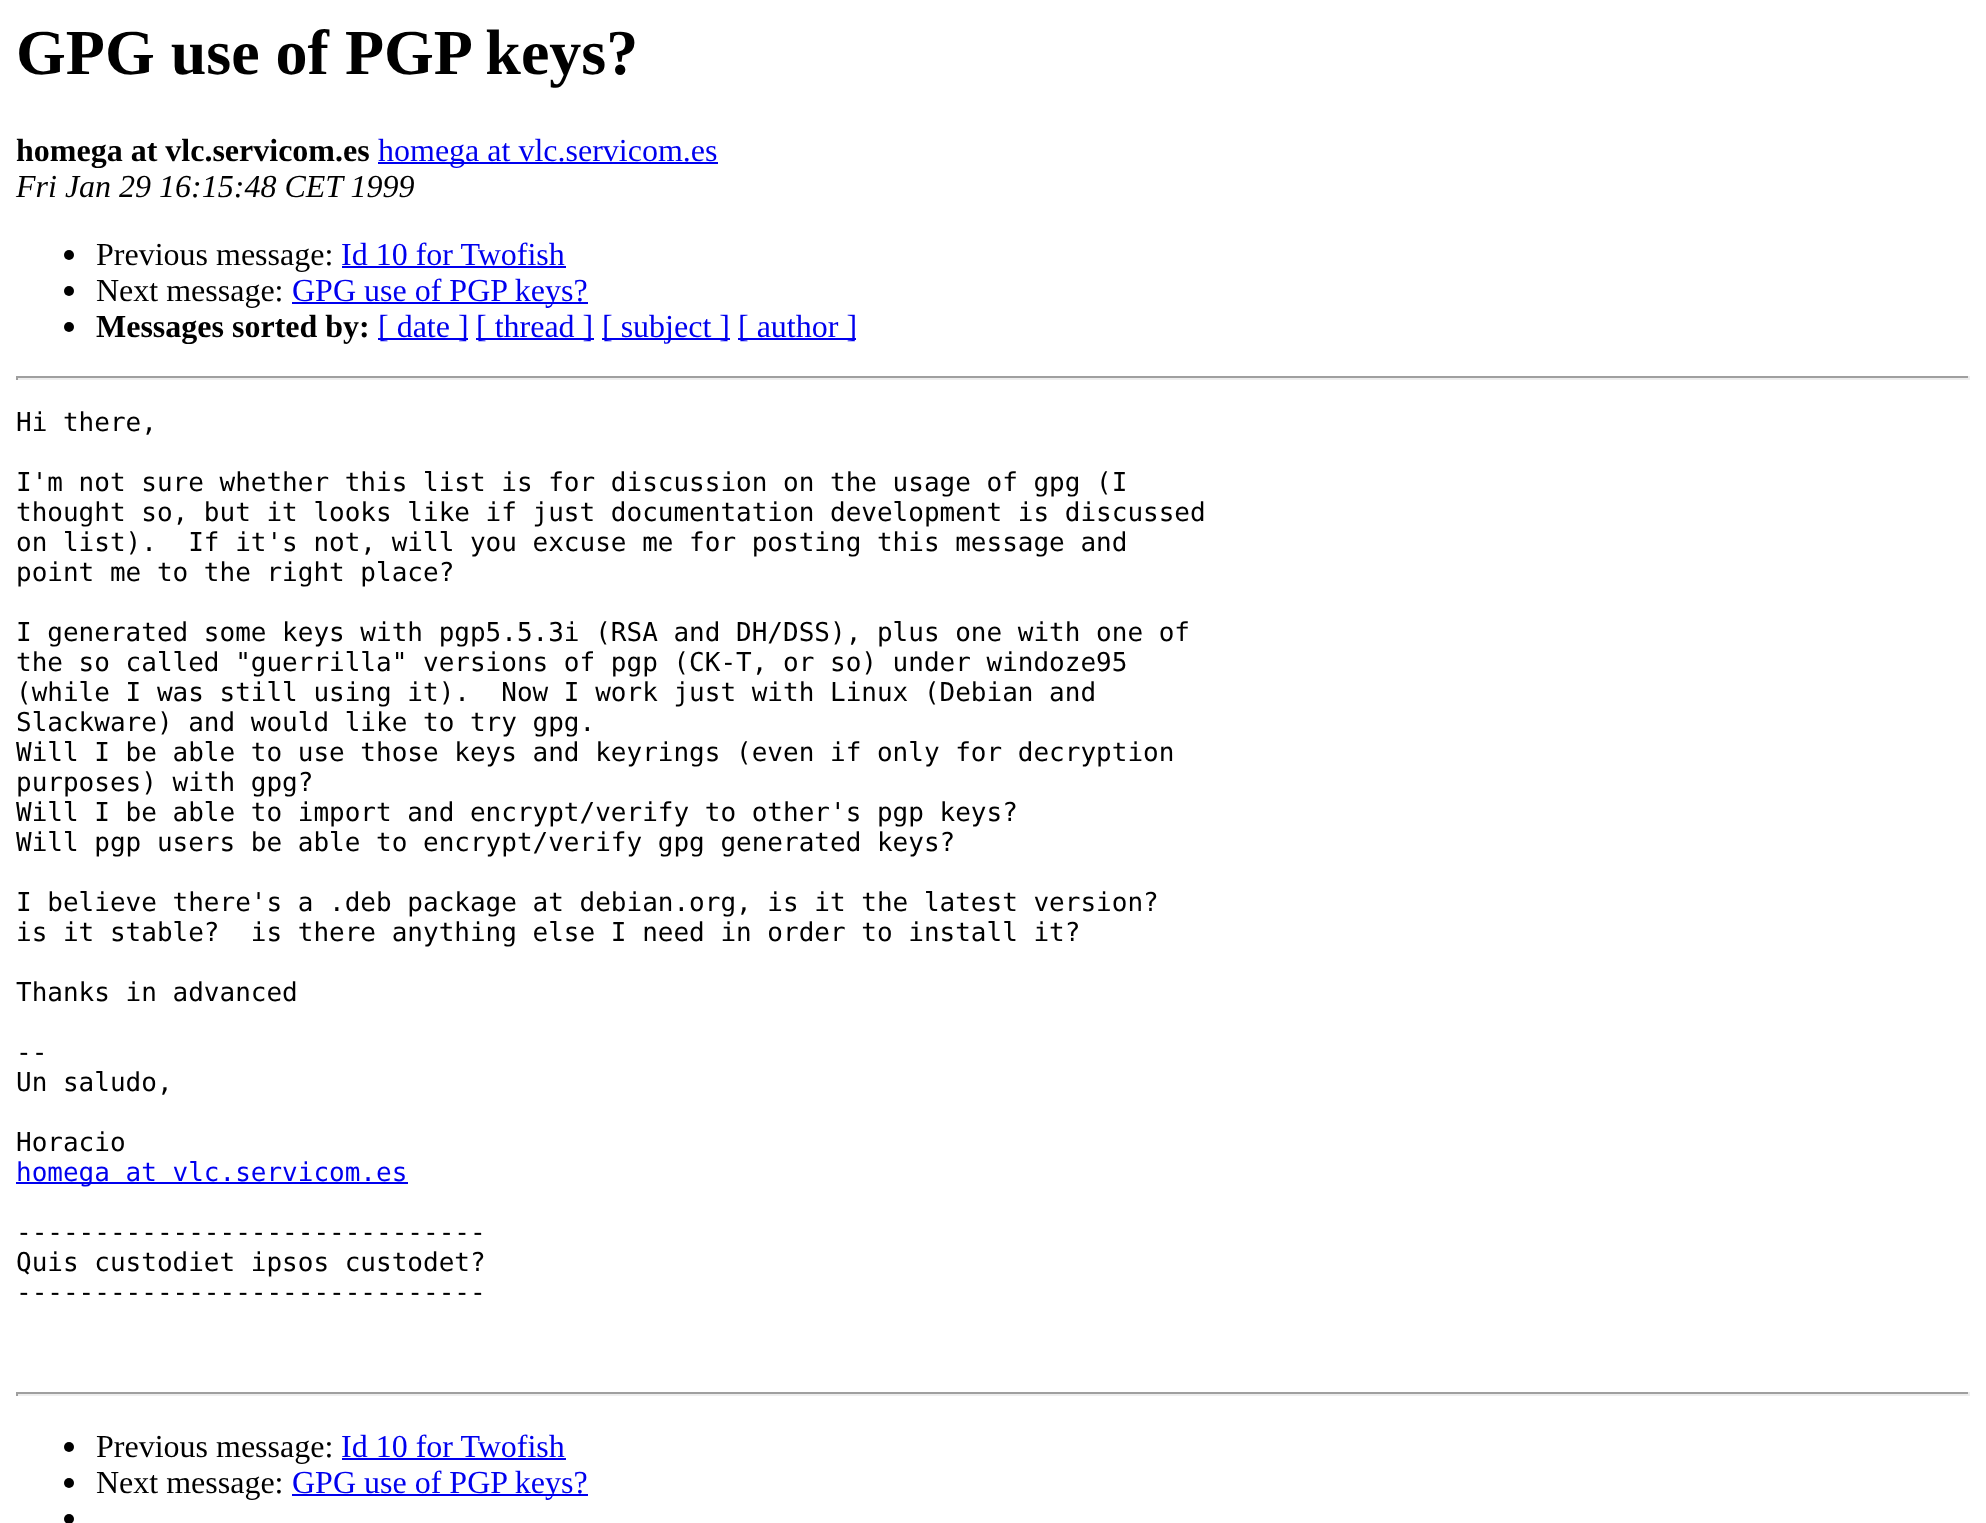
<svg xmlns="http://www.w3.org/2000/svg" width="1986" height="1523">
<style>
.a{font:bold 64px Liberation Serif;fill:#000}
.b{font:bold 32px Liberation Serif;fill:#000}
.c{font:32px Liberation Serif;fill:#00e}
.d{font:italic 32px Liberation Serif;fill:#000}
.e{font:32px Liberation Serif;fill:#000}
.f{font:26px DejaVu Sans Mono;fill:#000}
.g{font:26px DejaVu Sans Mono;fill:#00e}
</style>
<rect width="100%" height="100%" fill="#fff"/>
<path fill="#00e" d="M378 162h340v2H378z"/>
<circle fill="#000" cx="69" cy="255" r="5"/>
<path fill="#00e" d="M342 266h224v2H342z"/>
<circle fill="#000" cx="69" cy="291" r="5"/>
<path fill="#00e" d="M292 302h296v2H292z"/>
<circle fill="#000" cx="69" cy="327" r="5"/>
<path fill="#00e" d="M378 338h90v2H378z"/>
<path fill="#00e" d="M476 338h118v2H476z"/>
<path fill="#00e" d="M602 338h128v2H602z"/>
<path fill="#00e" d="M738 338h118v2H738z"/>
<path fill="#9f9f9f" d="M16 376h1954v2H16z"/>
<path fill="#eee" d="M1968 376h2v4H1968z"/>
<path fill="#eee" d="M16 378h1954v2H16z"/>
<path fill="#9f9f9f" d="M16 376h2v4H16z"/>
<path fill="#00e" d="M16 1182h392v2H16z"/>
<path fill="#9f9f9f" d="M16 1392h1954v2H16z"/>
<path fill="#eee" d="M1968 1392h2v4H1968z"/>
<path fill="#eee" d="M16 1394h1954v2H16z"/>
<path fill="#9f9f9f" d="M16 1392h2v4H16z"/>
<circle fill="#000" cx="69" cy="1447" r="5"/>
<path fill="#00e" d="M342 1458h224v2H342z"/>
<circle fill="#000" cx="69" cy="1483" r="5"/>
<path fill="#00e" d="M292 1494h296v2H292z"/>
<circle fill="#000" cx="69" cy="1519" r="5"/>
<text class="a" x="16" y="74">GPG use of PGP keys?</text>
<text class="b" x="16" y="161">homega at vlc.servicom.es</text>
<text class="c" x="378" y="161">homega at vlc.servicom.es</text>
<text class="d" x="16" y="197">Fri Jan 29 16:15:48 CET 1999</text>
<text class="e" x="96" y="265">Previous message:</text>
<text class="c" x="341" y="265">Id 10 for Twofish</text>
<text class="e" x="96" y="301">Next message:</text>
<text class="c" x="292" y="301">GPG use of PGP keys?</text>
<text class="b" x="96" y="337">Messages sorted by:</text>
<text class="c" x="378" y="337">[ date ]</text>
<text class="c" x="476" y="337">[ thread ]</text>
<text class="c" x="602" y="337">[ subject ]</text>
<text class="c" x="738" y="337">[ author ]</text>
<text class="f" x="16" y="431">Hi there,</text>
<text class="f" x="16" y="491">I'm not sure whether this list is for discussion on the usage of gpg (I</text>
<text class="f" x="16" y="521">thought so, but it looks like if just documentation development is discussed</text>
<text class="f" xml:space="preserve" x="16" y="551">on list).  If it's not, will you excuse me for posting this message and</text>
<text class="f" x="16" y="581">point me to the right place?</text>
<text class="f" x="16" y="641">I generated some keys with pgp5.5.3i (RSA and DH/DSS), plus one with one of</text>
<text class="f" x="16" y="671">the so called "guerrilla" versions of pgp (CK-T, or so) under windoze95</text>
<text class="f" xml:space="preserve" x="16" y="701">(while I was still using it).  Now I work just with Linux (Debian and</text>
<text class="f" x="16" y="731">Slackware) and would like to try gpg.</text>
<text class="f" x="16" y="761">Will I be able to use those keys and keyrings (even if only for decryption</text>
<text class="f" x="16" y="791">purposes) with gpg?</text>
<text class="f" x="16" y="821">Will I be able to import and encrypt/verify to other's pgp keys?</text>
<text class="f" x="16" y="851">Will pgp users be able to encrypt/verify gpg generated keys?</text>
<text class="f" x="16" y="911">I believe there's a .deb package at debian.org, is it the latest version?</text>
<text class="f" xml:space="preserve" x="16" y="941">is it stable?  is there anything else I need in order to install it?</text>
<text class="f" x="16" y="1001">Thanks in advanced</text>
<text class="f" x="16" y="1061">--</text>
<text class="f" x="16" y="1091">Un saludo,</text>
<text class="f" x="16" y="1151">Horacio</text>
<text class="g" x="16" y="1181">homega at vlc.servicom.es</text>
<text class="f" x="16" y="1241">------------------------------</text>
<text class="f" x="16" y="1271">Quis custodiet ipsos custodet?</text>
<text class="f" x="16" y="1301">------------------------------</text>
<text class="e" x="96" y="1457">Previous message:</text>
<text class="c" x="341" y="1457">Id 10 for Twofish</text>
<text class="e" x="96" y="1493">Next message:</text>
<text class="c" x="292" y="1493">GPG use of PGP keys?</text>
</svg>
